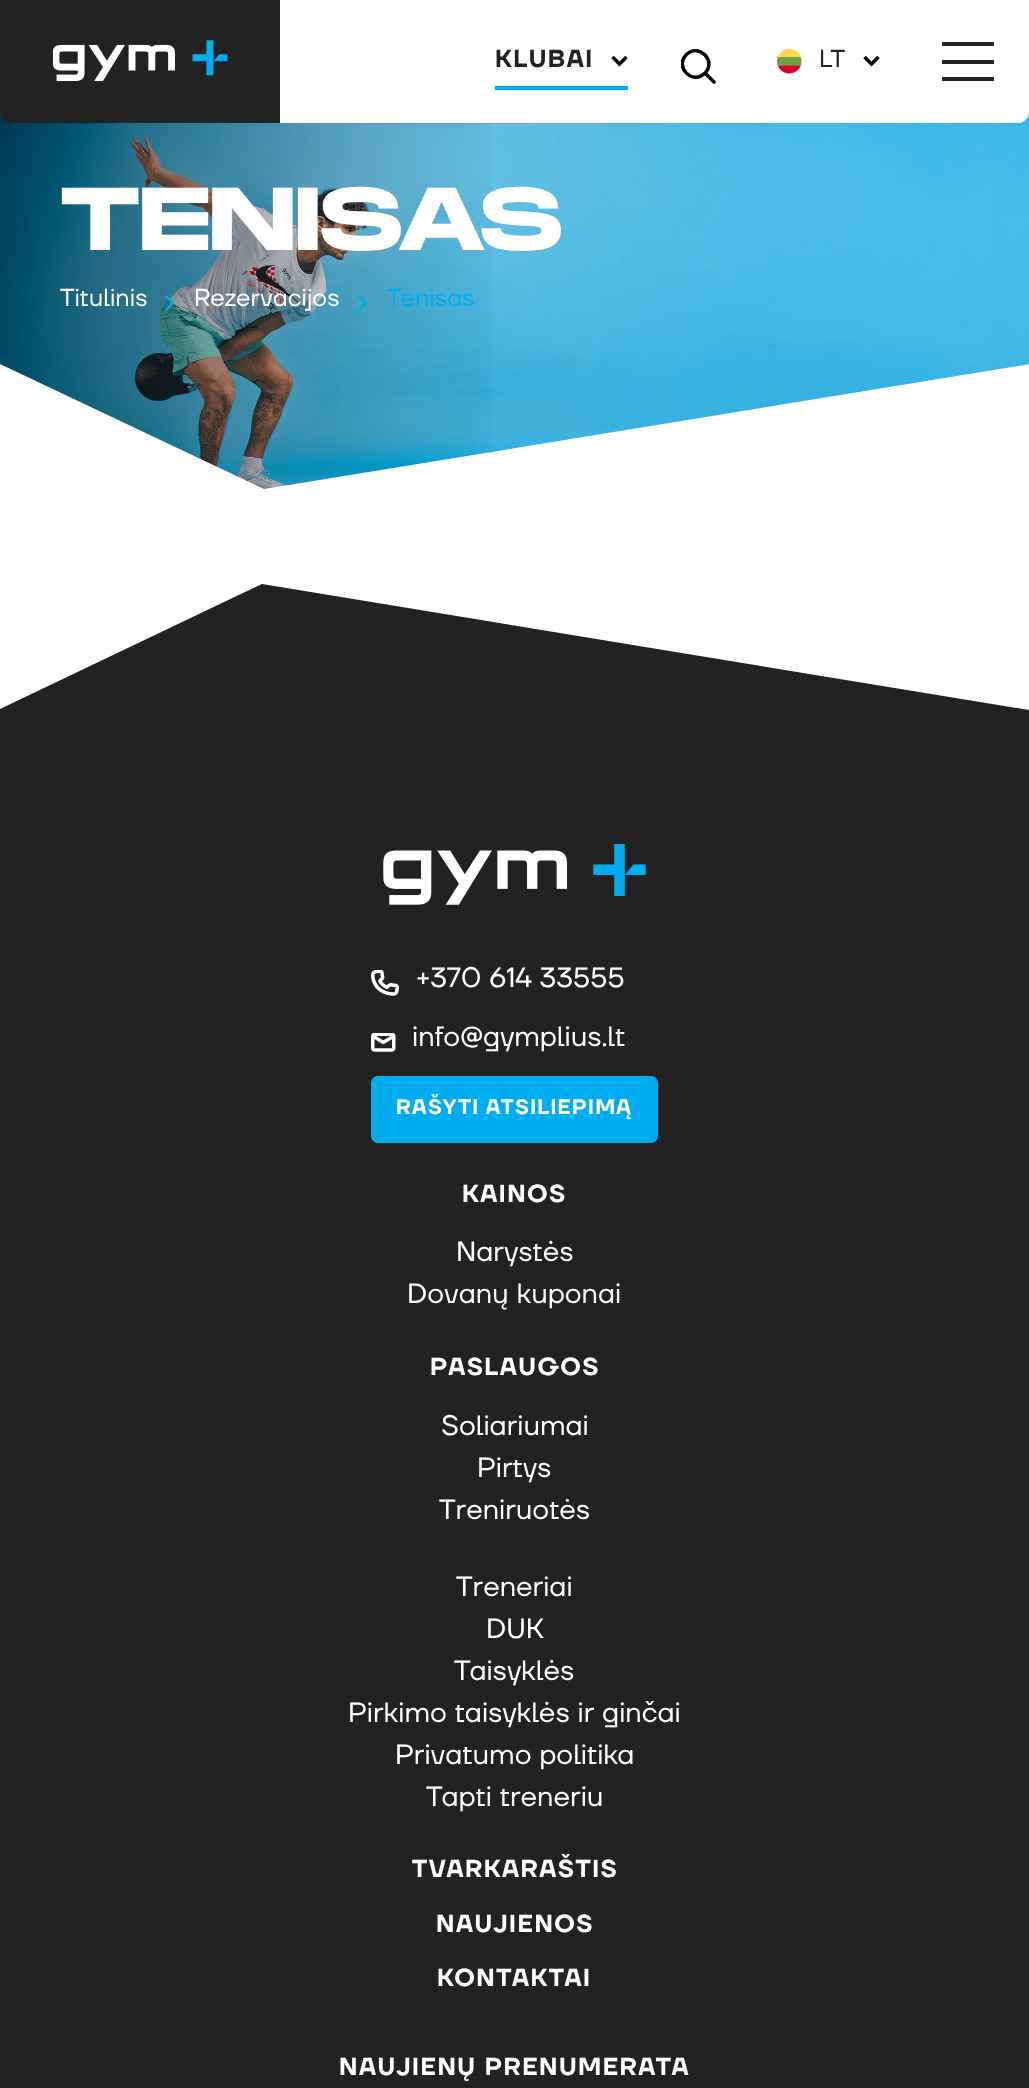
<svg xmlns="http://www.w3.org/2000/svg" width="1029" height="2088">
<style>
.a{font:600 24.5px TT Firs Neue;letter-spacing:1.5px;fill:#222}
.b{font:24.5px TT Firs Neue;fill:#222}
.c{font:bold 89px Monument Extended;fill:#fff}
.d{font:24.5px TT Firs Neue;fill:#fff}
.e{font:24.5px TT Firs Neue;fill:#00aeef}
.f{font:28px TT Firs Neue;fill:#fff}
.g{font:600 21px TT Firs Neue;letter-spacing:1.25px;fill:#fff}
.h{font:600 24.5px TT Firs Neue;letter-spacing:1.5px;fill:#fff}
</style>
<defs>
<linearGradient id="g1" gradientUnits="userSpaceOnUse" x1="0" y1="247" x2="1029" y2="247"><stop offset="0" stop-color="#000" stop-opacity="0.5"/><stop offset="0.5" stop-color="#000" stop-opacity="0"/></linearGradient>
<clipPath id="clip1"><path d="M681 49h35v35H681z"/></clipPath>
</defs>
<rect width="100%" height="100%" fill="#fff"/>
<image href="3.png" x="0" y="112" width="1029" height="377"/>
<path fill="url(#g1)" d="M0 112h492v377H0z"/>
<path fill="#fff" d="M0 0h1029v112c0 6-5 11-11 11h-1004c-7.5 0-14-6.5-14-14z"/>
<path fill="#222" d="M0 0h280v123h-269c-6 0-11-5-11-11z"/>
<image href="1.png" x="53" y="40" width="175" height="42"/>
<path fill="none" stroke="#000" stroke-width="3.5" d="M626.5 57l-7 7l-7-7"/>
<path fill="#00aeef" d="M495 86h133v4H495z"/>
<g clip-path="url(#clip1)">
<path fill="none" stroke="#000" stroke-width="3.5" stroke-linecap="round" stroke-linejoin="round" d="M714 82l-9-9m0 0c12-12-6.5-30.5-18.5-18.5c-12.5 12.5 6 31 18.5 18.5z"/>
</g>
<image href="2.png" x="777" y="49" width="25" height="25"/>
<path fill="none" stroke="#000" stroke-width="3.5" d="M878.5 57l-7 7l-7-7"/>
<path fill="#222" d="M942 42h52v4H942z"/>
<path fill="#222" d="M942 60h52v4H942z"/>
<path fill="#222" d="M942 77h52v4H942z"/>
<path fill="none" stroke="#00aeef" stroke-width="2.6" d="M166 296l7 7l-7 7"/>
<path fill="none" stroke="#00aeef" stroke-width="2.6" d="M359 296l7 7l-7 7"/>
<path fill="#fff" d="M264 489l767-125v131h-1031v-131z"/>
<path fill="#222" d="M0 584h1029v1504H0z"/>
<path fill="#fff" d="M262 584l767 126v-131h-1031v131z"/>
<image href="4.png" x="383" y="844" width="263" height="61"/>
<image href="5.png" x="371" y="970" width="28" height="26"/>
<image href="6.png" x="371" y="1033" width="25" height="19"/>
<rect fill="#00aeef" x="371" y="1076" width="287" height="67" rx="7"/>
<text class="a" x="495" y="67">KLUBAI</text>
<text class="b" x="819" y="67">LT</text>
<text class="c" x="60" y="250">TENISAS</text>
<text class="d" x="60" y="306">Titulinis</text>
<text class="d" x="194" y="306">Rezervacijos</text>
<text class="e" x="387" y="306">Tenisas</text>
<text class="f" x="416" y="987">+370 614 33555</text>
<text class="f" x="412" y="1046">info@gymplius.lt</text>
<text class="g" x="396" y="1114">RAŠYTI ATSILIEPIMĄ</text>
<text class="h" x="462" y="1202">KAINOS</text>
<text class="f" x="456" y="1261">Narystės</text>
<text class="f" x="407" y="1303">Dovanų kuponai</text>
<text class="h" x="430" y="1375">PASLAUGOS</text>
<text class="f" x="441" y="1435">Soliariumai</text>
<text class="f" x="477" y="1477">Pirtys</text>
<text class="f" x="439" y="1519">Treniruotės</text>
<text class="f" x="456" y="1596">Treneriai</text>
<text class="f" x="486" y="1638">DUK</text>
<text class="f" x="454" y="1680">Taisyklės</text>
<text class="f" x="348" y="1722">Pirkimo taisyklės ir ginčai</text>
<text class="f" x="395" y="1764">Privatumo politika</text>
<text class="f" x="426" y="1806">Tapti treneriu</text>
<text class="h" x="412" y="1877">TVARKARAŠTIS</text>
<text class="h" x="436" y="1932">NAUJIENOS</text>
<text class="h" x="437" y="1986">KONTAKTAI</text>
<text class="h" x="339" y="2075">NAUJIENŲ PRENUMERATA</text>
</svg>
